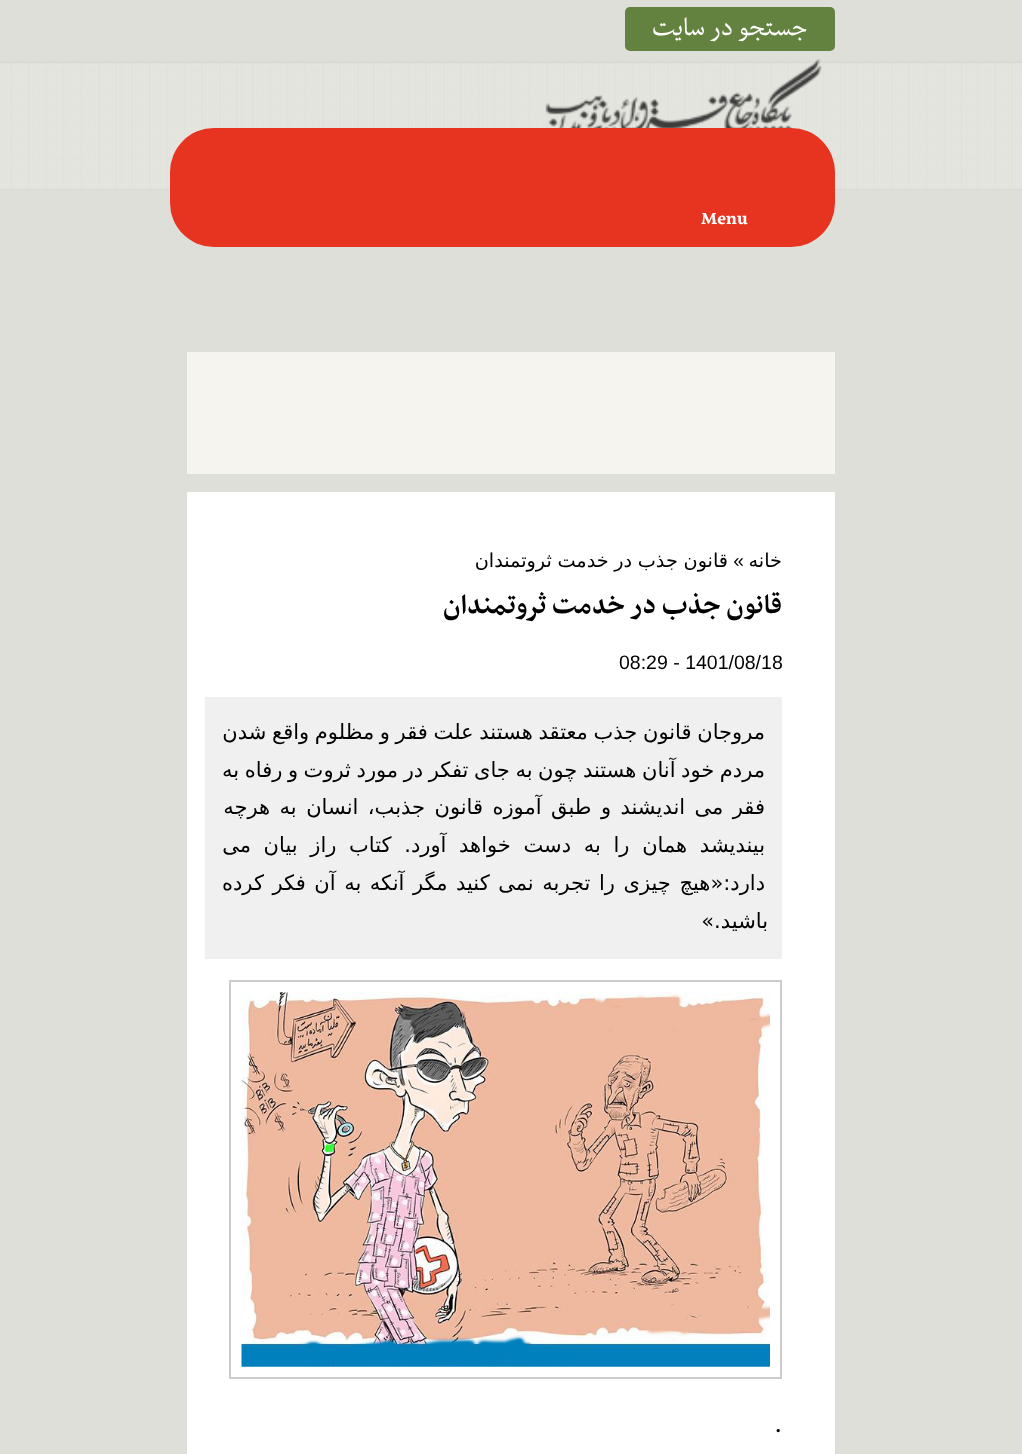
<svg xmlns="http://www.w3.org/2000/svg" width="1022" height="1454">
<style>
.a{font:29.75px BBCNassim;direction:rtl;fill:#fff}
.b{font:bold 21px BBCNassim;fill:#fff}
.c{font:19.25px DejaVu Sans;direction:rtl;fill:#000}
.d{font:19.25px Liberation Sans;direction:rtl;fill:#000}
.e{font:bold 31.5px BBCNassim;direction:rtl;fill:#000}
.f{font:19.5px Liberation Sans;fill:#000}
.g{font:21px DejaVu Sans;direction:rtl;fill:#000}
.h{font:29.75px BBCNassim;fill:#000}
</style>
<rect width="100%" height="100%" fill="#dfdfd9"/>
<image href="1.png" x="0" y="61" width="1022" height="129"/>
<rect fill="#63823f" x="625" y="7" width="210" height="44" rx="5"/>
<image href="2.png" x="545" y="59" width="277" height="70"/>
<rect fill="#e73420" x="170" y="128" width="665" height="119" rx="44"/>
<path fill="#f5f4ef" d="M187 352h648v122H187z"/>
<path fill="#fff" d="M187 492h648v962H187z"/>
<path fill="#f0f0f0" d="M205 697h577v262H205z"/>
<path fill="none" stroke="#ccc" stroke-width="2" d="M230 981h551v397H230z"/>
<image href="3.png" x="241" y="992" width="529" height="375"/>
<text class="a" x="807" y="35">جستجو در سایت</text>
<text class="b" x="701" y="224">Menu</text>
<text class="c" x="782" y="567">خانه</text>
<text class="d" x="744" y="567">»</text>
<text class="c" x="728" y="567" word-spacing="-0.5">قانون جذب در خدمت ثروتمندان</text>
<text class="e" x="782" y="613">قانون جذب در خدمت ثروتمندان</text>
<text class="f" x="619" y="669">08:29 - 1401/08/18</text>
<text class="g" x="765" y="739" word-spacing="-1">مروجان قانون جذب معتقد هستند علت فقر و مظلوم واقع شدن</text>
<text class="g" x="765" y="777" word-spacing="-1.1">مردم خود آنان هستند چون به جای تفکر در مورد ثروت و رفاه به</text>
<text class="g" x="765" y="814" word-spacing="2.75">فقر می اندیشند و طبق آموزه قانون جذبب، انسان به هرچه</text>
<text class="g" x="765" y="852" word-spacing="6">بیندیشد همان را به دست خواهد آورد. کتاب راز بیان می</text>
<text class="g" x="765" y="890" word-spacing="1.9">دارد:«هیچ چیزی را تجربه نمی کنید مگر آنکه به آن فکر کرده</text>
<text class="g" x="768" y="928">باشید.»</text>
<text class="h" x="774" y="1432">.</text>
</svg>
